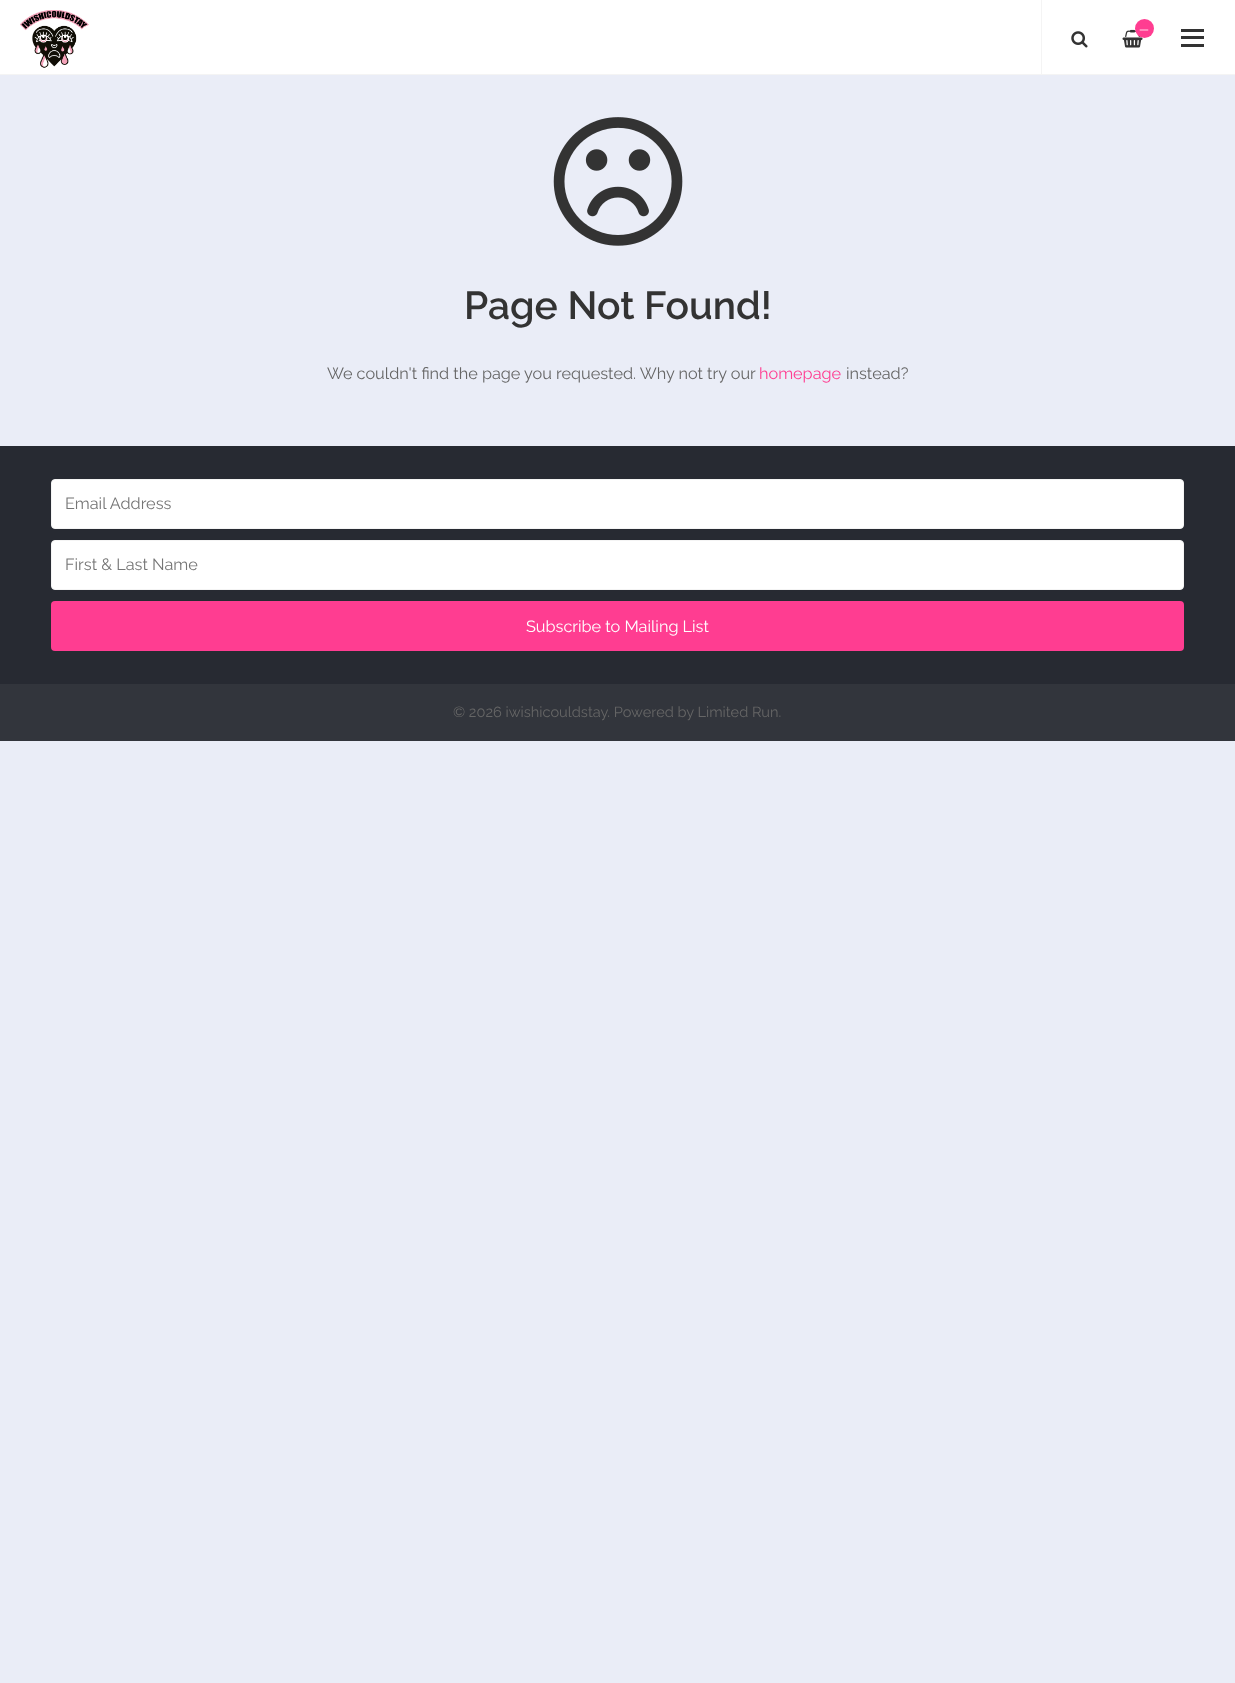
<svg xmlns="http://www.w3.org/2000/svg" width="1235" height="1683">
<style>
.a{font:11px Raleway;letter-spacing:1px;fill:#fff}
.b{font:600 39px Raleway;fill:#333}
.c{font:16.25px Raleway;fill:#666}
.d{font:16.25px Raleway;fill:#ff3d91}
.e{font:16.25px Raleway;fill:#757575}
.f{font:16.25px Raleway;fill:#fff}
.g{font:14.6px Raleway;fill:#666}
</style>
<rect width="100%" height="100%" fill="#eaedf7"/>
<path fill="#fff" d="M0 0h1235v74H0z"/>
<path fill="#f4f4f4" d="M0 74h1235v1H0z"/>
<image href="1.png" x="20" y="10" width="69" height="58"/>
<path fill="#f4f4f4" d="M1041 0h1v75H1041z"/>
<image href="2.png" x="1071" y="31" width="17" height="17"/>
<image href="3.png" x="1122" y="29" width="21" height="19"/>
<circle fill="#ff3d91" cx="1144.5" cy="28.5" r="9.5"/>
<path fill="#333" d="M1181 36h23v3H1181z"/>
<path fill="#333" d="M1181 29h23v3H1181z"/>
<path fill="#333" d="M1181 44h23v3H1181z"/>
<image href="4.png" x="553" y="117" width="130" height="129"/>
<path fill="#272a32" d="M0 446h1235v238H0z"/>
<rect fill="#fff" stroke="#f4f4f4" x="51.5" y="479.5" width="1132" height="49" rx="3.5"/>
<rect fill="#fff" stroke="#f4f4f4" x="51.5" y="540.5" width="1132" height="49" rx="3.5"/>
<rect fill="#ff3d91" x="51" y="601" width="1133" height="50" rx="4"/>
<path fill="#32353c" d="M0 684h1235v57H0z"/>
<text class="a" x="1139" y="33">—</text>
<text class="b" x="464" y="319">Page Not Found!</text>
<text class="c" x="327" y="379">We couldn't find the page you requested. Why not try our</text>
<text class="d" x="759" y="379">homepage</text>
<text class="c" x="846" y="379">instead?</text>
<text class="e" x="65" y="509">Email Address</text>
<text class="e" x="65" y="570">First &amp; Last Name</text>
<text class="f" x="526" y="632">Subscribe to Mailing List</text>
<text class="g" x="453" y="717">© 2026 iwishicouldstay. Powered by Limited Run.</text>
</svg>
